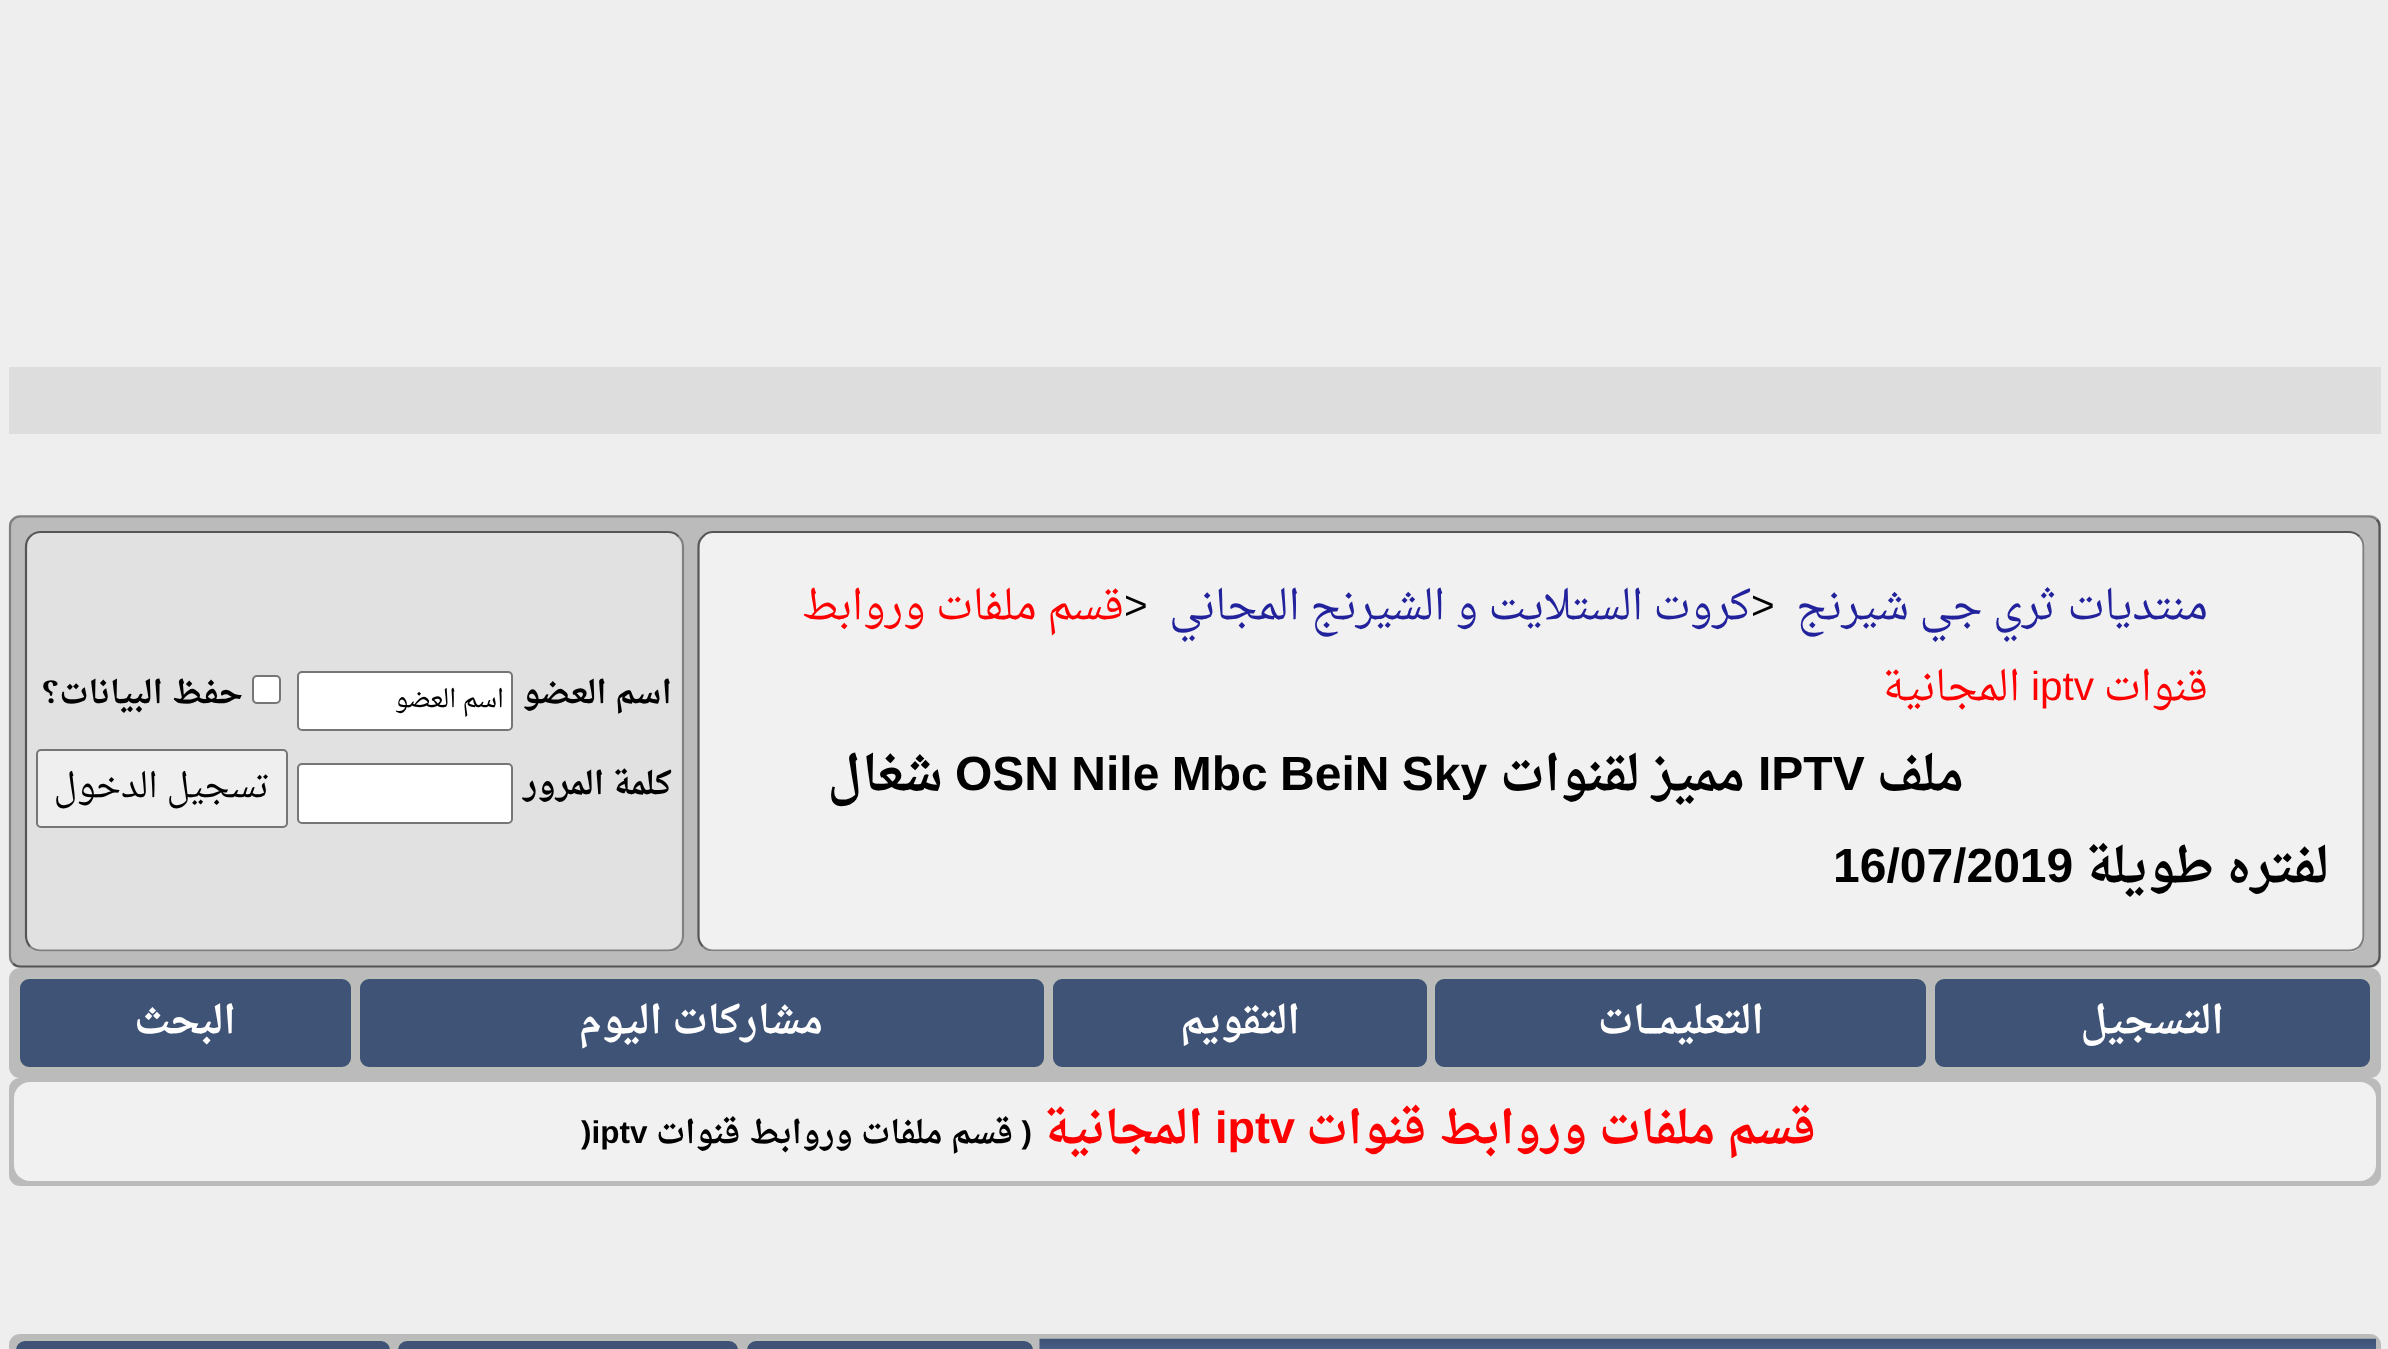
<svg xmlns="http://www.w3.org/2000/svg" width="2388" height="1349">
<style>
.a{font:40.5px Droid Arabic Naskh;direction:rtl;fill:#22229c}
.b{font:40.5px Liberation Sans;fill:#000}
.c{font:40.5px Droid Arabic Naskh;direction:rtl;fill:#f00}
.d{font:40.5px Liberation Sans;fill:#f00}
.e{font:bold 48px Droid Arabic Naskh;direction:rtl;fill:#000}
.f{font:bold 48px Liberation Sans;fill:#000}
.g{font:bold 31.5px Droid Arabic Naskh;direction:rtl;fill:#000}
.h{font:24.75px Droid Arabic Naskh;direction:rtl;fill:#000}
.i{font:33.75px Droid Arabic Naskh;direction:rtl;fill:#000}
.j{font:bold 38.25px Droid Arabic Naskh;direction:rtl;fill:#fff}
.k{font:bold 45px Droid Arabic Naskh;direction:rtl;fill:#f00}
.l{font:bold 45px Liberation Sans;fill:#f00}
.m{font:bold 31.5px Liberation Sans;direction:rtl;fill:#000}
.n{font:bold 31.5px Liberation Sans;fill:#000}
</style>
<rect width="100%" height="100%" fill="#eee"/>
<path fill="#ddd" d="M9 367h2372v67H9z"/>
<rect fill="#bbb" x="9" y="515" width="2372" height="453" rx="11"/>
<path fill="none" stroke="#555" stroke-width="2.2" d="M2376.5 519.5c2 1.5 3 4.5 3 7v429.5c0 3-1 5.5-3 7.5c-2 2-4.5 3-7.5 3h-2348.5c-3 0-5.5-1-7.5-3"/>
<path fill="none" stroke="#808080" stroke-width="2.2" d="M13 963.5c-2-2-3-4.5-3-7.5v-429.5c0-2.5 1-5.5 3-7c2-2 4.5-3 7-3h2349c3 0 5.5 1 7.5 3"/>
<rect fill="#f1f1f1" x="698" y="531" width="1667" height="421" rx="16"/>
<path fill="none" stroke="#808080" stroke-width="2.2" d="M2359.5 536.5c2.5 2.5 4 6.5 4 10.5v389c0 4-1.5 7.5-4 10.5c-3 2.5-6.5 4-10.5 4h-1636c-3.5 0-7.5-1.5-10-4"/>
<path fill="none" stroke="#555" stroke-width="2.2" d="M703 946.5c-3-3-4.5-6.5-4.5-10.5v-389c0-4 1.5-8 4.5-10.5c2.5-3 6.5-4.5 10-4.5h1636c4 0 7.5 1.5 10.5 4.5"/>
<rect fill="#e1e1e2" x="25" y="531" width="659" height="421" rx="16"/>
<path fill="none" stroke="#808080" stroke-width="2.2" d="M678.5 536.5c3 2.5 4.5 6.5 4.5 10.5v389c0 4-1.5 7.5-4.5 10.5c-2.5 2.5-6.5 4-10.5 4h-627.5c-4 0-7.5-1.5-10.5-4"/>
<path fill="none" stroke="#555" stroke-width="2.2" d="M30 946.5c-2.5-3-4-6.5-4-10.5v-389c0-4 1.5-8 4-10.5c3-3 6.5-4.5 10.5-4.5h627.5c4 0 8 1.5 10.5 4.5"/>
<rect fill="#fff" stroke="#767676" stroke-width="2" x="298" y="672" width="214" height="58" rx="4"/>
<rect fill="#fff" stroke="#767676" stroke-width="2" x="253" y="676" width="27" height="27" rx="4"/>
<rect fill="#fff" stroke="#767676" stroke-width="2" x="298" y="764" width="214" height="59" rx="4"/>
<rect fill="#efefef" stroke="#767676" stroke-width="2" x="37" y="750" width="250" height="77" rx="4"/>
<rect fill="#bbb" x="9" y="968" width="2372" height="110" rx="11"/>
<rect fill="#3f5376" stroke="#bbbdb9" stroke-width="2" x="1934" y="978" width="437" height="90" rx="10"/>
<rect fill="#3f5376" stroke="#bbbdb9" stroke-width="2" x="1434" y="978" width="493" height="90" rx="10"/>
<rect fill="#3f5376" stroke="#bbbdb9" stroke-width="2" x="1052" y="978" width="376" height="90" rx="10"/>
<rect fill="#3f5376" stroke="#bbbdb9" stroke-width="2" x="359" y="978" width="686" height="90" rx="10"/>
<rect fill="#3f5376" stroke="#bbbdb9" stroke-width="2" x="19" y="978" width="333" height="90" rx="10"/>
<rect fill="#bbb" x="9" y="1078" width="2372" height="108" rx="11"/>
<rect fill="#f1f1f1" x="14" y="1082" width="2362" height="99" rx="16"/>
<rect fill="#bbb" x="9" y="1334" width="2372" height="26" rx="11"/>
<image href="1.png" x="1039" y="1338" width="1337" height="11"/>
<rect fill="#3f5376" stroke="#bbbdb9" stroke-width="2" x="746" y="1340" width="288" height="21" rx="10"/>
<rect fill="#3f5376" stroke="#bbbdb9" stroke-width="2" x="397" y="1340" width="342" height="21" rx="10"/>
<rect fill="#3f5376" stroke="#bbbdb9" stroke-width="2" x="15" y="1340" width="376" height="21" rx="10"/>
<text class="a" x="2208" y="619">منتديات ثري جي شيرنج</text>
<text class="b" x="1751" y="619">&gt;</text>
<text class="a" x="1751" y="619">كروت الستلايت و الشيرنج المجاني</text>
<text class="b" x="1124" y="619">&gt;</text>
<text class="c" x="1124" y="619">قسم ملفات وروابط</text>
<text class="c" x="2208" y="700">قنوات</text>
<text class="d" x="2031" y="700">iptv</text>
<text class="c" x="2020" y="700">المجانية</text>
<text class="e" x="1964" y="790">ملف</text>
<text class="f" x="1758" y="790">IPTV</text>
<text class="e" x="1745" y="790">مميز لقنوات</text>
<text class="f" x="955" y="790" word-spacing="-1">OSN Nile Mbc BeiN Sky</text>
<text class="e" x="943" y="790">شغال</text>
<text class="e" x="2329" y="882">لفتره طويلة</text>
<text class="f" x="1833" y="882">16/07/2019</text>
<text class="g" x="672" y="703">اسم العضو</text>
<text class="h" x="504" y="707">اسم العضو</text>
<text class="g" x="243" y="703">حفظ البيانات؟</text>
<text class="g" x="672" y="794">كلمة المرور</text>
<text class="i" x="270" y="797">تسجيل الدخول</text>
<text class="j" x="2224" y="1033">التسجيل</text>
<text class="j" x="1764" y="1033">التعليمـــات</text>
<text class="j" x="1300" y="1033">التقويم</text>
<text class="j" x="823" y="1033">مشاركات اليوم</text>
<text class="j" x="236" y="1033">البحث</text>
<text class="k" x="1816" y="1143">قسم ملفات وروابط قنوات</text>
<text class="l" x="1215" y="1143">iptv</text>
<text class="k" x="1203" y="1143">المجانية</text>
<text class="m" x="1032" y="1143">(</text>
<text class="g" x="1013" y="1143">قسم ملفات وروابط قنوات</text>
<text class="n" x="581" y="1143">)iptv</text>
</svg>
